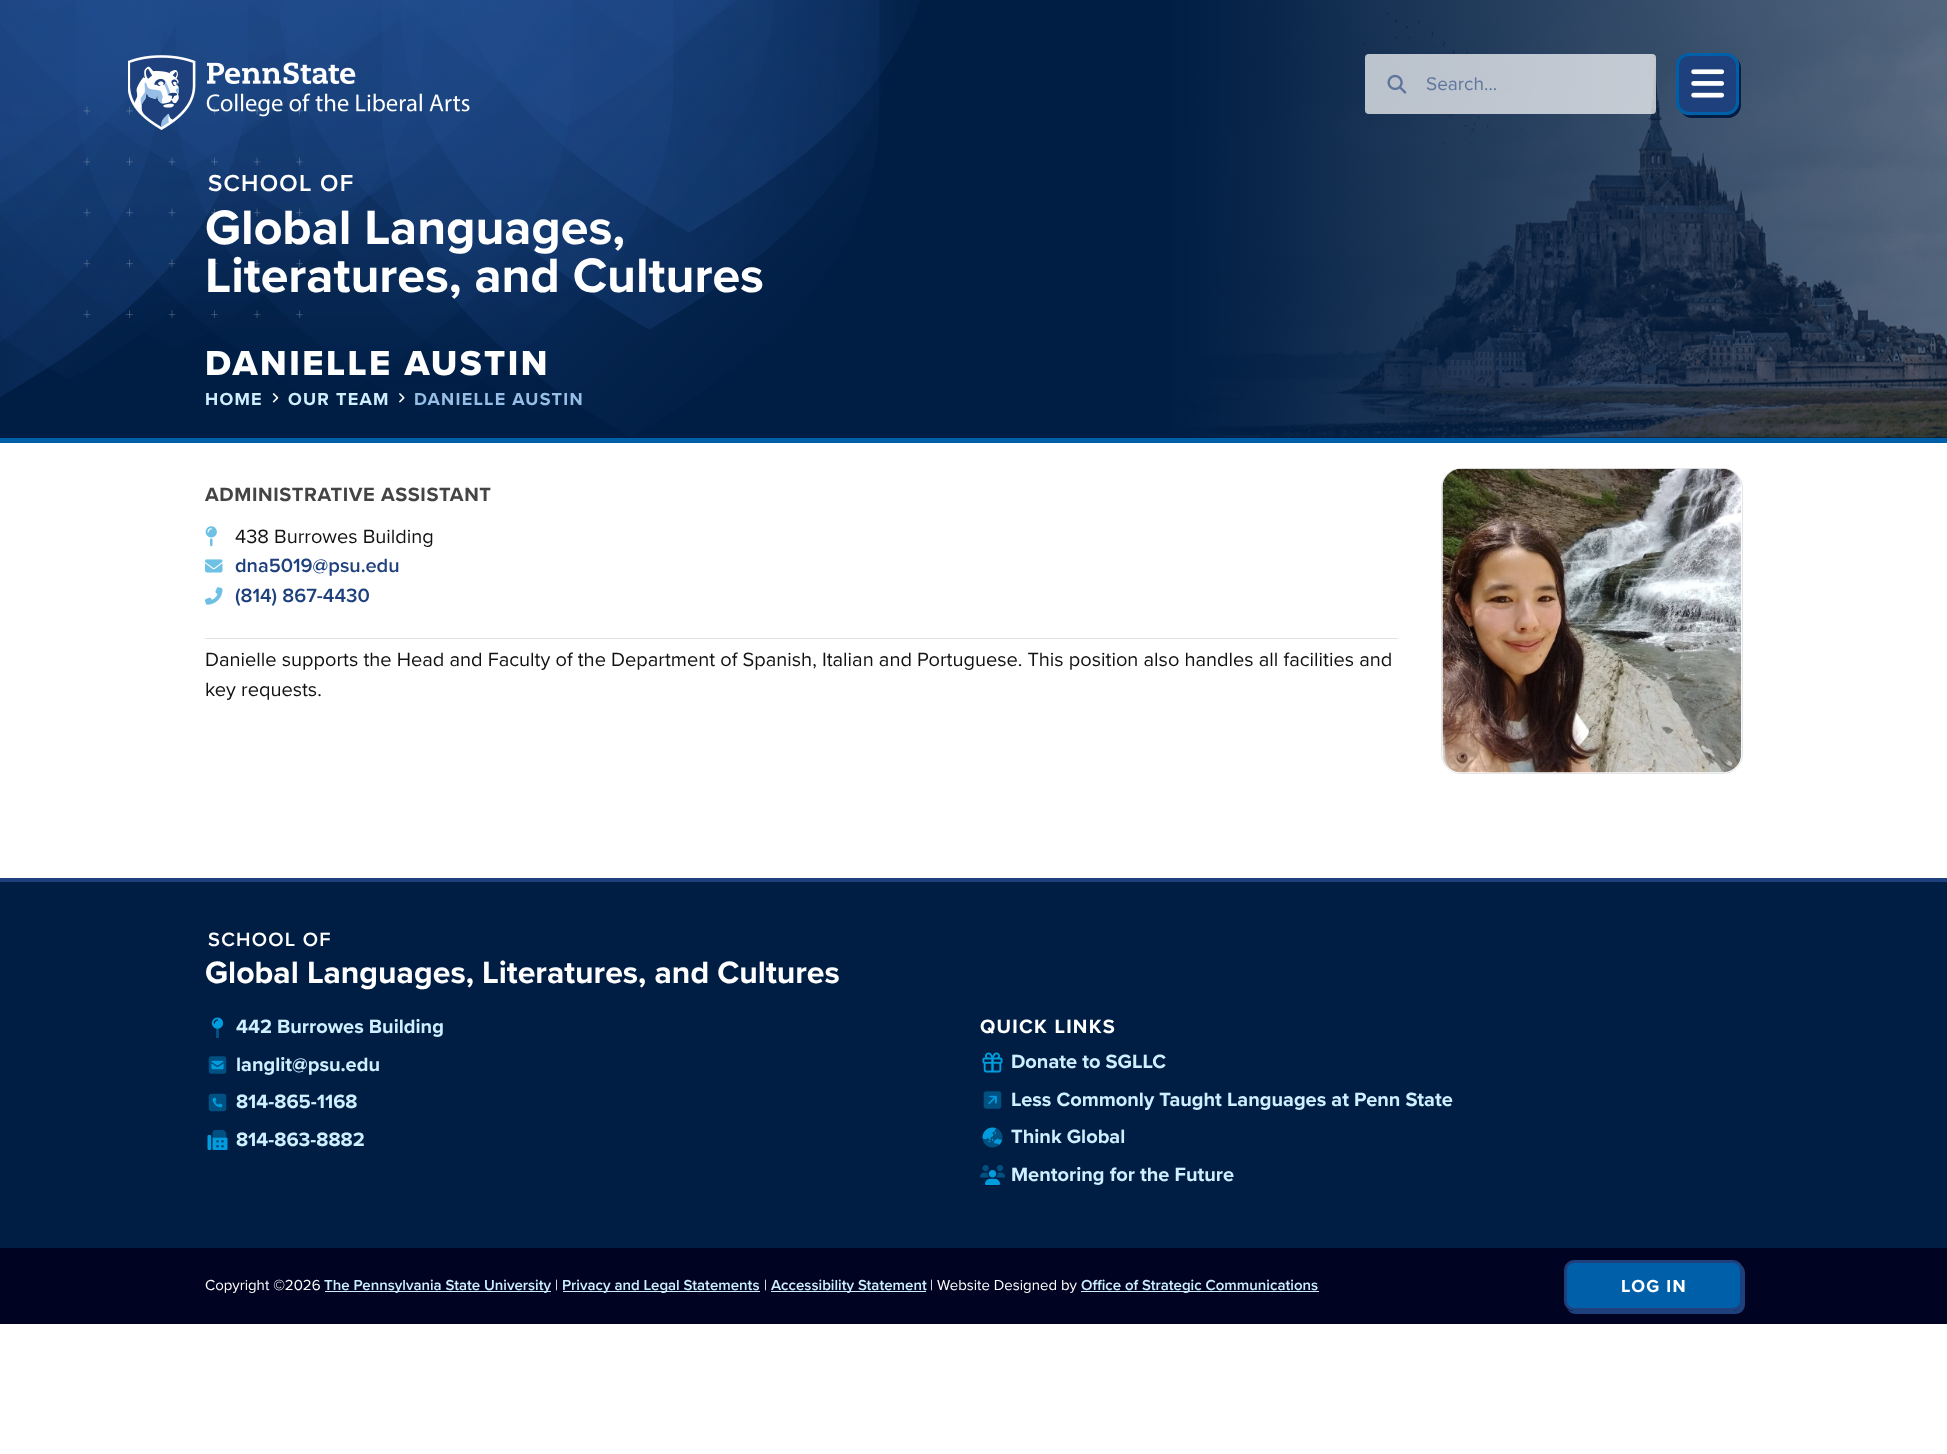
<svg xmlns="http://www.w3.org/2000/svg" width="1947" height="1454">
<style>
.a{font:19px Proxima Nova;fill:#5e759d}
.b{font:600 24px Proxima Nova;letter-spacing:1.25px;fill:#fff}
.c{font:bold 50px Proxima Nova;fill:#fff}
.d{font:800 36px Proxima Nova;letter-spacing:2.5px;fill:#fff}
.e{font:bold 18px Proxima Nova;letter-spacing:1.25px;fill:#ccf0ff}
.f{font:bold 18px Proxima Nova;letter-spacing:1.25px;fill:#96bee6}
.g{font:bold 20px Proxima Nova;letter-spacing:0.6px;fill:#444}
.h{font:20px Proxima Nova;fill:#121212}
.i{font:600 20px Proxima Nova;fill:#1e407c}
.j{font:600 20px Proxima Nova;letter-spacing:1.25px;fill:#fff}
.k{font:bold 32px Proxima Nova;fill:#fff}
.l{font:bold 20px Proxima Nova;fill:#ccf0ff}
.m{font:bold 20px Proxima Nova;letter-spacing:1.25px;fill:#fff}
.n{font:15px Proxima Nova;fill:#fff}
.o{font:600 15px Proxima Nova;fill:#ccf0ff}
.p{font:bold 18px Proxima Nova;letter-spacing:1.25px;fill:#fff}
</style>
<defs>
<linearGradient id="g1" gradientUnits="userSpaceOnUse" x1="0" y1="219" x2="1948" y2="219"><stop offset="0.6" stop-color="#001e44"/><stop offset="1" stop-color="#001e44" stop-opacity="0.62"/></linearGradient>
</defs>
<rect width="100%" height="100%" fill="#fff"/>
<path fill="#001e44" d="M1181 0h766v438H1181z"/>
<path fill="#005fa9" d="M0 438h1947v5H0z"/>
<image href="1.png" x="1181" y="0" width="766" height="438"/>
<path fill="url(#g1)" d="M0 0h1947v438H0z"/>
<image href="2.png" x="0" y="0" width="920" height="436"/>
<rect fill="#ffffffb5" x="1365" y="54" width="291" height="60" rx="4"/>
<image href="3.png" x="1387" y="74" width="20" height="20"/>
<path fill="#001e44" d="M1682 113c2 3 6 5 10 5h36c7 0 13-6 13-13v-37c0-4-2-7-4-9c1 1 2 4 2 6v37c0 7-6 13-13 13h-37c-3 0-5-1-7-2z"/>
<rect fill="#1e407c" stroke="#005fa9" stroke-width="3" x="1677.5" y="54.5" width="60" height="59" rx="11.5"/>
<image href="4.png" x="1691" y="69" width="34" height="29"/>
<image href="6.png" x="83" y="106" width="220" height="212"/>
<image href="5.png" x="128" y="55" width="342" height="75"/>
<image href="7.png" x="272" y="393" width="7" height="10"/>
<image href="8.png" x="399" y="393" width="6" height="10"/>
<image href="9.png" x="205" y="526" width="12" height="21"/>
<image href="10.png" x="205" y="559" width="18" height="14"/>
<image href="11.png" x="205" y="587" width="18" height="18"/>
<path fill="#e2e2e2" d="M205 638h1193v1H205z"/>
<rect fill="none" stroke="#e4e5e7" x="1441.5" y="468.5" width="301" height="305" rx="19.5"/>
<image href="12.png" x="1442" y="468" width="300" height="305"/>
<path fill="#001e44" d="M0 882h1947v366H0z"/>
<path fill="#1e407c" d="M0 878h1947v4H0z"/>
<image href="13.png" x="211" y="1017" width="13" height="12"/>
<path fill="#009cde66" d="M216 1028h3v10H216z"/>
<image href="15.png" x="211" y="1060" width="13" height="10"/>
<image href="14.png" x="208" y="1056" width="19" height="18"/>
<image href="17.png" x="212" y="1097" width="11" height="11"/>
<image href="16.png" x="208" y="1093" width="19" height="19"/>
<image href="19.png" x="207" y="1135" width="21" height="15"/>
<image href="18.png" x="212" y="1130" width="15" height="18"/>
<image href="20.png" x="982" y="1052" width="21" height="21"/>
<image href="22.png" x="988" y="1095" width="9" height="10"/>
<image href="21.png" x="983" y="1091" width="19" height="18"/>
<image href="23.png" x="982" y="1127" width="20" height="18"/>
<image href="24.png" x="982" y="1128" width="21" height="20"/>
<image href="26.png" x="985" y="1170" width="15" height="15"/>
<image href="25.png" x="980" y="1165" width="25" height="13"/>
<path fill="#000321" d="M0 1248h1947v76H0z"/>
<path fill="#ccf0ff" d="M325 1291h226v1H325z"/>
<path fill="#ccf0ff" d="M563 1291h197v1H563z"/>
<path fill="#ccf0ff" d="M771 1291h155v1H771z"/>
<path fill="#ccf0ff" d="M1081 1291h238v1H1081z"/>
<path fill="#1e407c" d="M1567 1309c2 3 5 5 9 5h159c6 0 10-4 10-10v-31c0-3-1-6-4-8c1 2 1 3 1 5v31c0 6-4 10-10 10h-158c-3 0-5-1-7-2z"/>
<rect fill="#005fa9" stroke="#1e407c" stroke-width="3" x="1565.5" y="1261.5" width="176" height="48" rx="8.5"/>
<text class="a" x="1426" y="90">Search...</text>
<text class="b" x="208" y="191">SCHOOL OF</text>
<text class="c" x="205" y="244">Global Languages,</text>
<text class="c" x="205" y="292">Literatures, and Cultures</text>
<text class="d" x="205" y="375">DANIELLE AUSTIN</text>
<text class="e" x="205" y="405">HOME</text>
<text class="e" x="288" y="405">OUR TEAM</text>
<text class="f" x="414" y="405">DANIELLE AUSTIN</text>
<text class="g" x="205" y="501">ADMINISTRATIVE ASSISTANT</text>
<text class="h" x="235" y="543">438 Burrowes Building</text>
<text class="i" x="235" y="572">dna5019@psu.edu</text>
<text class="i" x="235" y="602">(814) 867-4430</text>
<text class="h" x="205" y="666">Danielle supports the Head and Faculty of the Department of Spanish, Italian and Portuguese. This position also handles all facilities and</text>
<text class="h" x="205" y="696">key requests.</text>
<text class="j" x="208" y="946">SCHOOL OF</text>
<text class="k" x="205" y="983">Global Languages, Literatures, and Cultures</text>
<text class="l" x="236" y="1033">442 Burrowes Building</text>
<text class="l" x="236" y="1071">langlit@psu.edu</text>
<text class="l" x="236" y="1108">814-865-1168</text>
<text class="l" x="236" y="1146">814-863-8882</text>
<text class="m" x="980" y="1033">QUICK LINKS</text>
<text class="l" x="1011" y="1068">Donate to SGLLC</text>
<text class="l" x="1011" y="1106">Less Commonly Taught Languages at Penn State</text>
<text class="l" x="1011" y="1143">Think Global</text>
<text class="l" x="1011" y="1181">Mentoring for the Future</text>
<text class="n" x="205" y="1290">Copyright ©2026</text>
<text class="o" x="324" y="1290">The Pennsylvania State University</text>
<text class="n" x="555" y="1290">|</text>
<text class="o" x="562" y="1290">Privacy and Legal Statements</text>
<text class="n" x="764" y="1290">|</text>
<text class="o" x="771" y="1290">Accessibility Statement</text>
<text class="n" x="930" y="1290">| Website Designed by</text>
<text class="o" x="1081" y="1290">Office of Strategic Communications</text>
<text class="p" x="1621" y="1292">LOG IN</text>
</svg>
